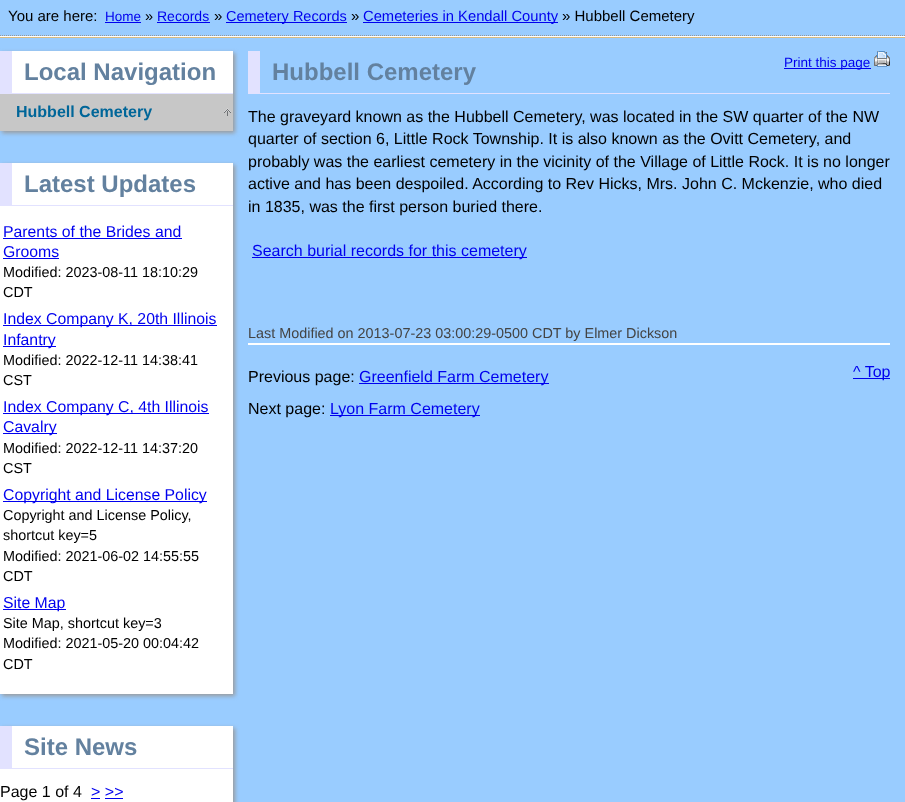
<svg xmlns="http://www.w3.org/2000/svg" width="905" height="802">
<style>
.a{font:15px Liberation Sans;fill:#000}
.b{font:13.5px Liberation Sans;fill:#00e}
.c{font:14.5px Liberation Sans;fill:#000}
.d{font:14px Liberation Sans;fill:#00e}
.e{font:14.5px Liberation Sans;fill:#00e}
.f{font:14.75px Liberation Sans;fill:#00e}
.g{font:bold 24px Liberation Sans;fill:#63819f}
.h{font:bold 16px Liberation Sans;fill:#069}
.i{font:15.8px Liberation Sans;fill:#00e}
.j{font:14.4px Liberation Sans;fill:#000}
.k{font:16px Liberation Sans;fill:#000}
.l{font:16px Liberation Sans;fill:#00e}
.m{font:14.4px Liberation Sans;fill:#444}
</style>
<defs>
<clipPath id="clip1"><path d="M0 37h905v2H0z"/></clipPath>
</defs>
<rect width="100%" height="100%" fill="#9cf"/>
<g clip-path="url(#clip1)">
<path fill="#d9bc82" filter="blur(0.5px)" d="M0 -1h905v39H0z"/>
</g>
<path fill="#fff" d="M0 36h905v1H0z"/>
<path fill="none" stroke="#999" stroke-dasharray="1 1" d="M0 35.5h905"/>
<path fill="#00e" d="M105 22h36v1H105z"/>
<path fill="#00e" d="M157 22h53v1H157z"/>
<path fill="#00e" d="M226 22h121v1H226z"/>
<path fill="#00e" d="M363 22h195v1H363z"/>
<path fill="#999" filter="blur(2px)" d="M2 53h233v80H2z"/>
<path fill="#fff" d="M12 51h221v42H12z"/>
<path fill="#e2e2ff" d="M12 93h221v1H12z"/>
<path fill="#e2e2ff" d="M0 51h12v43H0z"/>
<path fill="#c7c7c7" d="M0 94h233v37H0z"/>
<image href="1.png" x="224" y="108" width="7" height="8"/>
<path fill="#999" filter="blur(2px)" d="M2 165h233v531H2z"/>
<path fill="#fff" d="M0 163h233v531H0z"/>
<path fill="#e2e2ff" d="M12 205h221v1H12z"/>
<path fill="#e2e2ff" d="M0 163h12v43H0z"/>
<path fill="#00e" d="M3 238h179v1H3z"/>
<path fill="#00e" d="M3 258h56v1H3z"/>
<path fill="#00e" d="M3 325h214v1H3z"/>
<path fill="#00e" d="M3 346h53v1H3z"/>
<path fill="#00e" d="M3 413h206v1H3z"/>
<path fill="#00e" d="M3 433h54v1H3z"/>
<path fill="#00e" d="M3 501h204v1H3z"/>
<path fill="#00e" d="M3 609h63v1H3z"/>
<path fill="#999" filter="blur(2px)" d="M2 728h233v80H2z"/>
<path fill="#fff" d="M0 726h233v76H0z"/>
<path fill="#e2e2ff" d="M12 768h221v1H12z"/>
<path fill="#e2e2ff" d="M0 726h12v43H0z"/>
<path fill="#00e" d="M91 798h9v1H91z"/>
<path fill="#00e" d="M105 798h18v1H105z"/>
<path fill="#e2e2ff" d="M260 93h630v1H260z"/>
<path fill="#e2e2ff" d="M248 51h12v43H248z"/>
<path fill="#00e" d="M784 68h87v1H784z"/>
<image href="2.png" x="874" y="51" width="16" height="16"/>
<path fill="#00e" d="M252 257h275v1H252z"/>
<path fill="#fff" d="M248 343h642v2H248z"/>
<path fill="#00e" d="M359 383h190v1H359z"/>
<path fill="#00e" d="M330 415h150v1H330z"/>
<path fill="#00e" d="M853 378h37v1H853z"/>
<text class="a" x="8" y="21">You are here:</text>
<text class="b" x="105" y="21">Home</text>
<text class="c" x="145" y="21">»</text>
<text class="d" x="157" y="21">Records</text>
<text class="a" x="214" y="21">»</text>
<text class="e" x="226" y="21">Cemetery Records</text>
<text class="a" x="351" y="21">»</text>
<text class="f" x="363" y="21">Cemeteries in Kendall County</text>
<text class="a" x="562" y="21">» Hubbell Cemetery</text>
<text class="g" x="24" y="80">Local Navigation</text>
<text class="h" x="16" y="117">Hubbell Cemetery</text>
<text class="g" x="24" y="192">Latest Updates</text>
<text class="i" x="3" y="237">Parents of the Brides and</text>
<text class="i" x="3" y="257">Grooms</text>
<text class="j" x="3" y="277">Modified: 2023-08-11 18:10:29</text>
<text class="j" x="3" y="297">CDT</text>
<text class="i" x="3" y="324">Index Company K, 20th Illinois</text>
<text class="i" x="3" y="345">Infantry</text>
<text class="j" x="3" y="365">Modified: 2022-12-11 14:38:41</text>
<text class="j" x="3" y="385">CST</text>
<text class="i" x="3" y="412">Index Company C, 4th Illinois</text>
<text class="i" x="3" y="432">Cavalry</text>
<text class="j" x="3" y="453">Modified: 2022-12-11 14:37:20</text>
<text class="j" x="3" y="473">CST</text>
<text class="i" x="3" y="500">Copyright and License Policy</text>
<text class="j" x="3" y="520">Copyright and License Policy,</text>
<text class="j" x="3" y="540">shortcut key=5</text>
<text class="j" x="3" y="561">Modified: 2021-06-02 14:55:55</text>
<text class="j" x="3" y="581">CDT</text>
<text class="i" x="3" y="608">Site Map</text>
<text class="j" x="3" y="628">Site Map, shortcut key=3</text>
<text class="j" x="3" y="648">Modified: 2021-05-20 00:04:42</text>
<text class="j" x="3" y="669">CDT</text>
<text class="g" x="24" y="755">Site News</text>
<text class="k" x="0" y="797">Page 1 of 4</text>
<text class="l" x="91" y="797">&gt; &gt;&gt;</text>
<text class="g" x="272" y="80">Hubbell Cemetery</text>
<text class="b" x="784" y="67">Print this page</text>
<text class="k" x="248" y="122">The graveyard known as the Hubbell Cemetery, was located in the SW quarter of the NW</text>
<text class="k" x="248" y="144">quarter of section 6, Little Rock Township. It is also known as the Ovitt Cemetery, and</text>
<text class="k" x="248" y="167">probably was the earliest cemetery in the vicinity of the Village of Little Rock. It is no longer</text>
<text class="k" x="248" y="189">active and has been despoiled. According to Rev Hicks, Mrs. John C. Mckenzie, who died</text>
<text class="k" x="248" y="212">in 1835, was the first person buried there.</text>
<text class="l" x="252" y="256">Search burial records for this cemetery</text>
<text class="m" x="248" y="338">Last Modified on 2013-07-23 03:00:29-0500 CDT by Elmer Dickson</text>
<text class="k" x="248" y="382">Previous page:</text>
<text class="l" x="359" y="382">Greenfield Farm Cemetery</text>
<text class="k" x="248" y="414">Next page:</text>
<text class="l" x="330" y="414">Lyon Farm Cemetery</text>
<text class="l" x="853" y="377">^ Top</text>
</svg>
